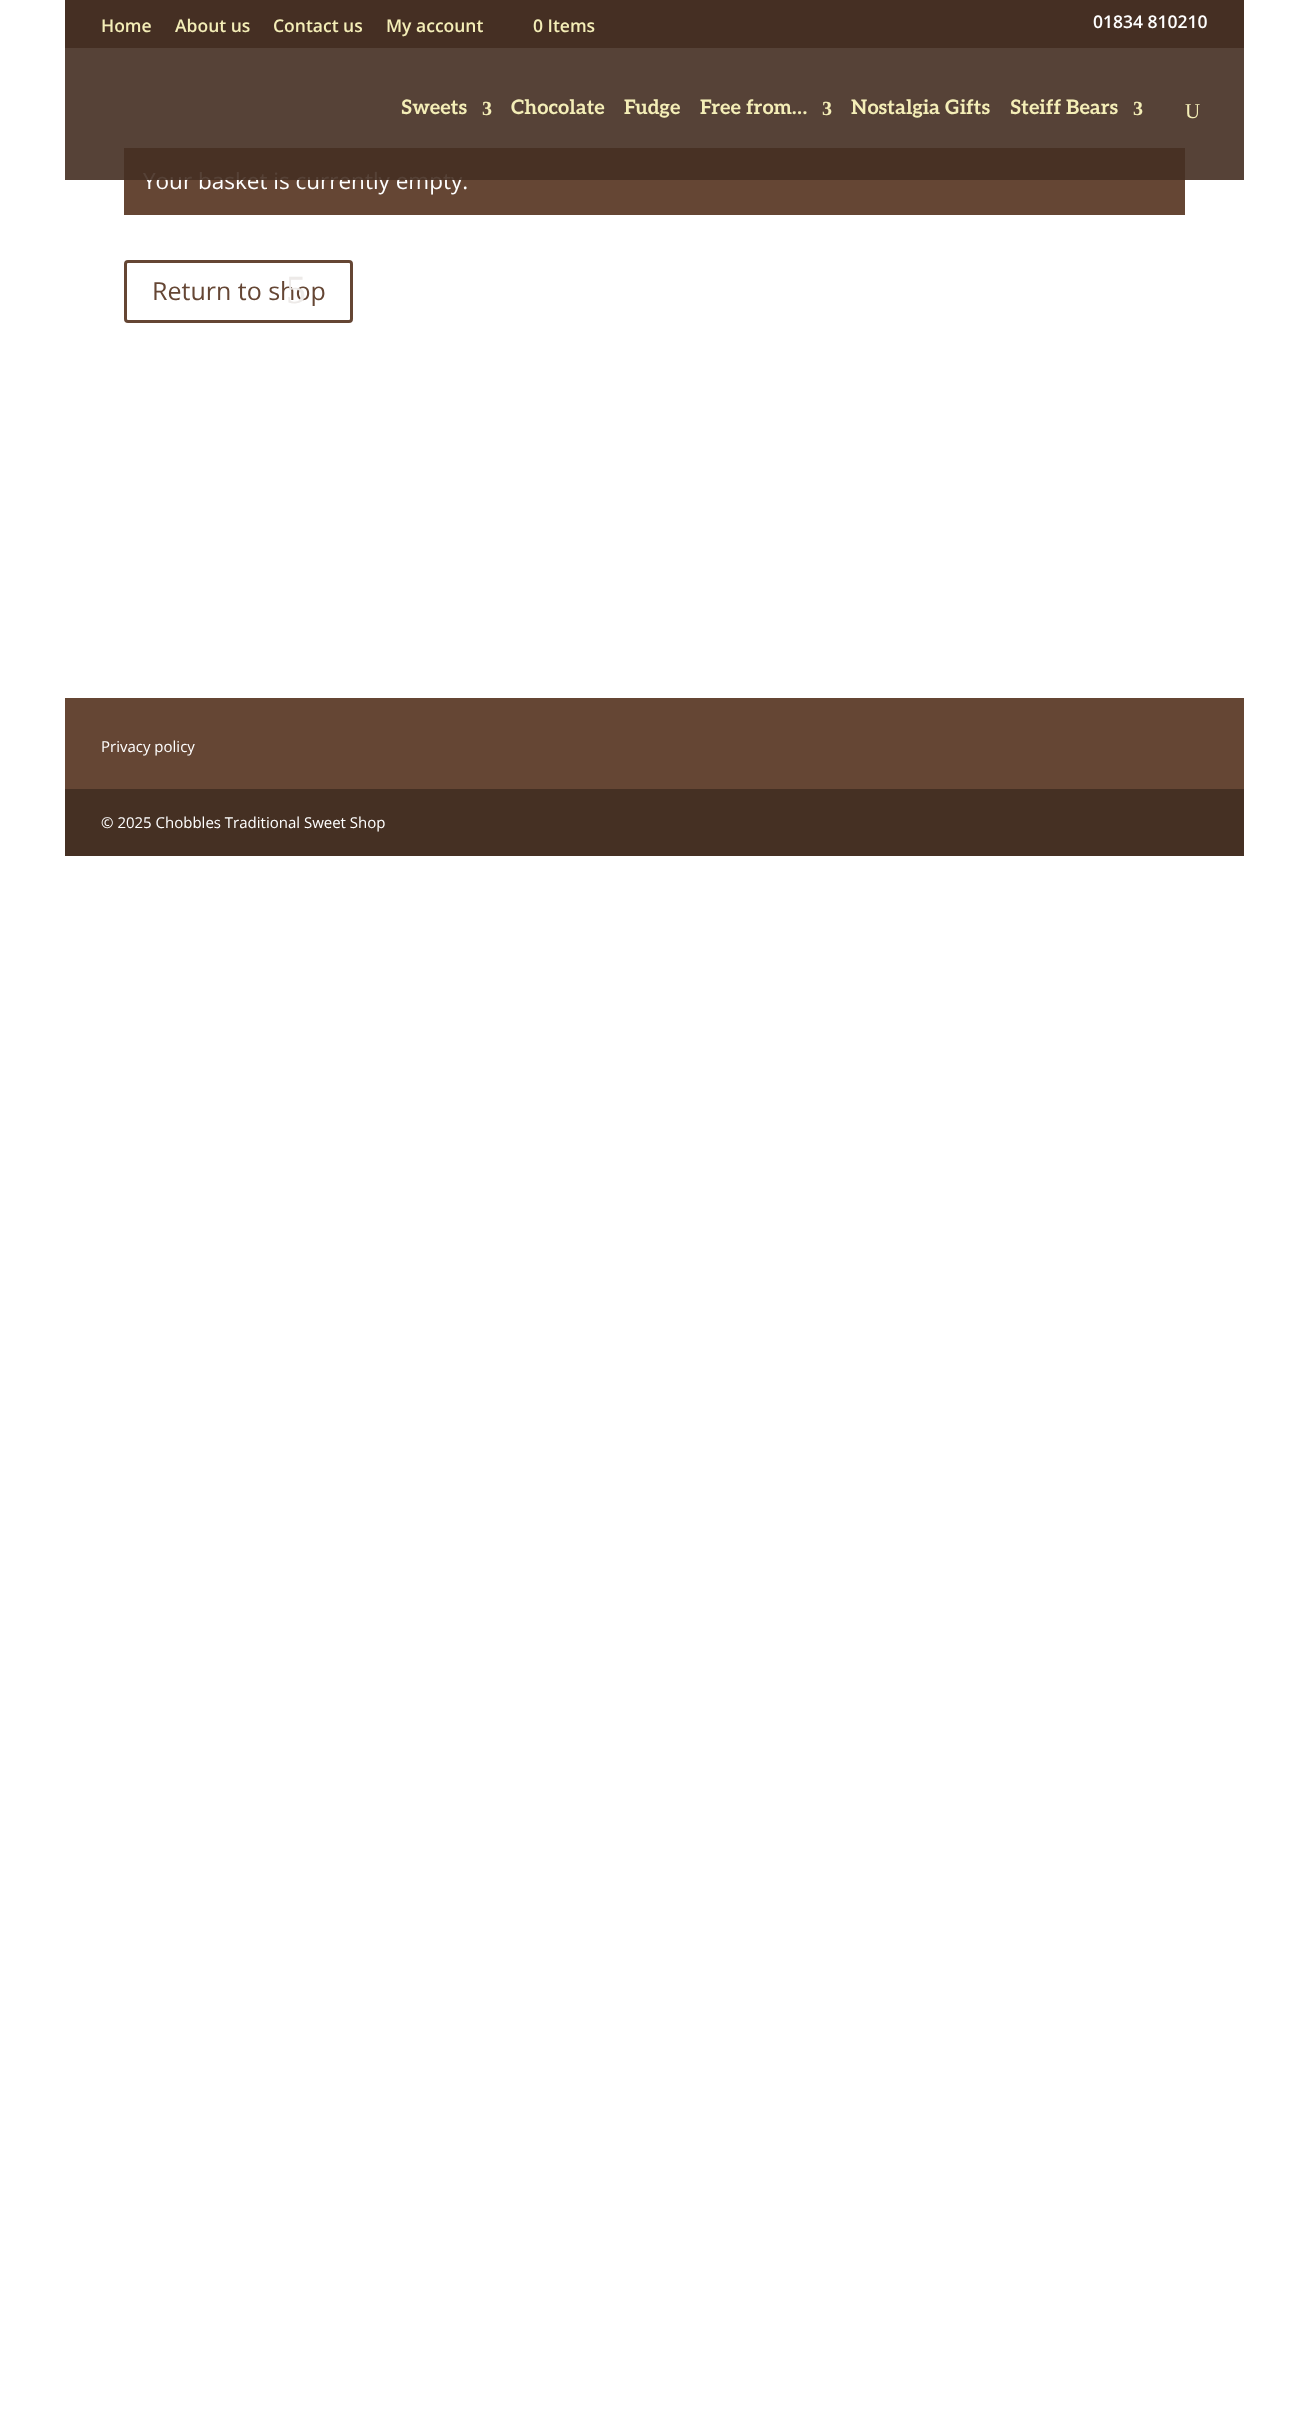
<svg xmlns="http://www.w3.org/2000/svg" width="1308" height="2436">
<style>
.a{font:600 17.5px Open Sans;fill:#f4eeb7}
.b{font:600 17.5px Open Sans;fill:#fff}
.c{font:22.5px Open Sans;fill:#fff}
.d{font:21px Liberation Serif;fill:#f4eeb7}
.e{font:bold 20px Liberation Serif;fill:#f4eeb7}
.f{font:bold 20px Aleo;fill:#f4eeb7}
.g{font:25px Open Sans;fill:#654634}
.h{font:40px Liberation Serif;fill:#edeae8}
.i{font:15px Open Sans;fill:#fff}
</style>
<rect width="100%" height="100%" fill="#fff"/>
<path fill="#452f23" d="M65 0h1179v48H65z"/>
<path fill="#654634" d="M124 148h1061v67H124z"/>
<rect fill="none" stroke="#654634" stroke-width="3" x="125.5" y="261.5" width="226" height="60" rx="2.5"/>
<path fill="#654634" d="M65 698h1179v91H65z"/>
<path fill="#453023" d="M65 789h1179v67H65z"/>
<text class="a" x="101" y="32">Home</text>
<text class="a" x="175" y="32">About us</text>
<text class="a" x="273" y="32">Contact us</text>
<text class="a" x="386" y="32">My account</text>
<text class="a" x="533" y="32">0 Items</text>
<text class="b" x="1093" y="28">01834 810210</text>
<text class="c" x="143" y="189">Your basket is currently empty.</text>
<path fill="#452f23e8" d="M65 48h1179v132H65z"/>
<text class="d" x="1185" y="118">U</text>
<text class="e" x="1133" y="115">3</text>
<text class="f" x="1010" y="114">Steiff Bears</text>
<text class="f" x="851" y="114">Nostalgia Gifts</text>
<text class="e" x="822" y="115">3</text>
<text class="f" x="700" y="114">Free from…</text>
<text class="f" x="624" y="114">Fudge</text>
<text class="f" x="511" y="114">Chocolate</text>
<text class="e" x="482" y="115">3</text>
<text class="f" x="401" y="114">Sweets</text>
<text class="g" x="152" y="300">Return to shop</text>
<text class="h" x="286" y="303">5</text>
<text class="i" x="101" y="752">Privacy policy</text>
<text class="i" x="101" y="828">© 2025 Chobbles Traditional Sweet Shop</text>
</svg>
